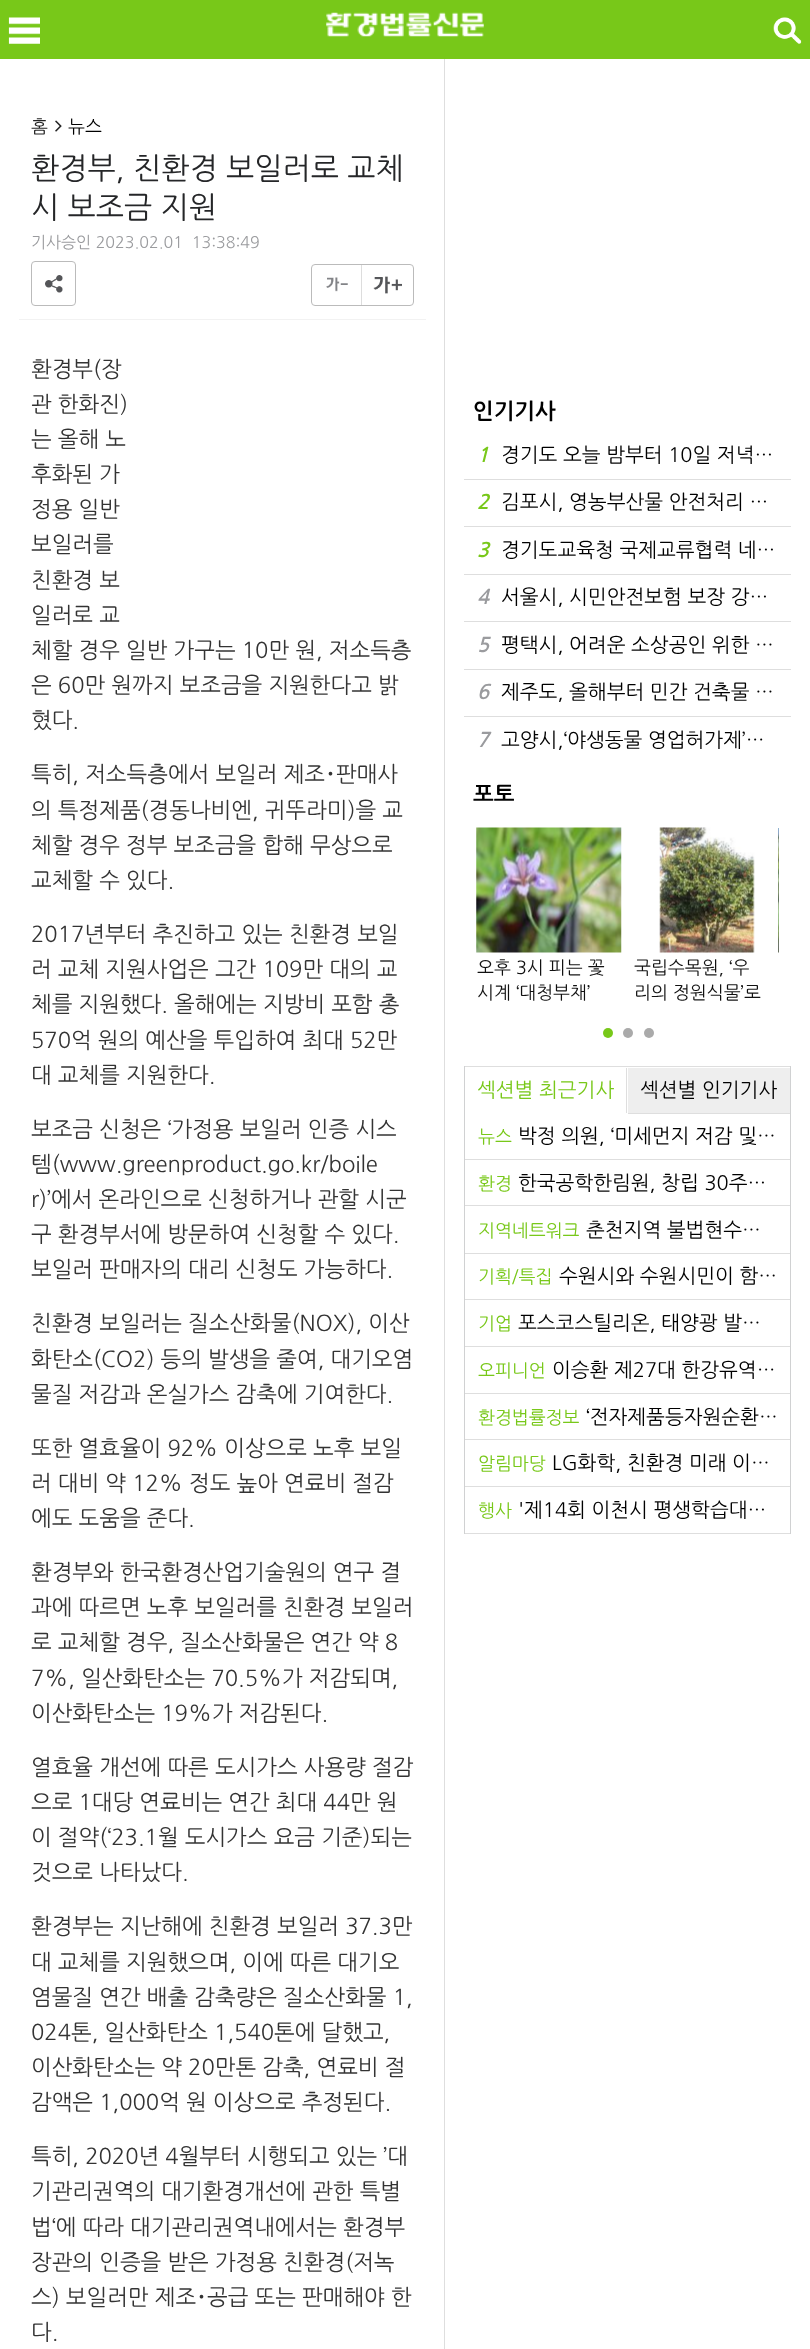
<svg xmlns="http://www.w3.org/2000/svg" width="810" height="2349">
<style>
.a{font:18px NanumGothic;fill:#222}
.b{font:18px NanumGothic;fill:#000}
.c{font:30px NanumGothic;fill:#252628}
.d{font:16px NanumGothic;fill:#9a9b9e}
.e{font:22px NanumGothic;fill:#333}
.f{font:22px Noto Sans CJK KR;fill:#333}
.g{font:bold 22px NanumGothic;fill:#000}
.h{font:italic bold 20px NanumGothic;fill:#78c819}
.i{font:20px NanumGothic;fill:#000}
.j{font:italic bold 20px NanumGothic;fill:#9a9b9e}
.k{font:18px NanumGothic;fill:#111}
.l{font:20px NanumGothic;fill:#78c819}
.m{font:18px NanumGothic;fill:#78c819}
</style>
<rect width="100%" height="100%" fill="#fff"/>
<path fill="#78c819" d="M0 0h810v59H0z"/>
<image href="1.png" x="8" y="17" width="32" height="27"/>
<image href="2.png" x="326" y="12" width="158" height="25"/>
<image href="3.png" x="773" y="17" width="29" height="27"/>
<path fill="#f2f2f2" d="M19 319h407v1H19z"/>
<image href="4.png" x="55" y="120" width="7" height="12"/>
<rect fill="none" stroke="#bbb" x="31.5" y="261.5" width="44" height="44" rx="3.5"/>
<image href="5.png" x="45" y="275" width="18" height="18"/>
<rect fill="none" stroke="#bbb" x="311.5" y="264.5" width="102" height="41" rx="3.5"/>
<path fill="#ddd" d="M361 265h1v40H361z"/>
<image href="6.png" x="326" y="277" width="22" height="15"/>
<image href="7.png" x="373" y="276" width="29" height="18"/>
<path fill="#dedede" d="M444 59h1v2290H444z"/>
<path fill="#dedede" d="M464 479h327v1H464z"/>
<path fill="#dedede" d="M464 526h327v1H464z"/>
<path fill="#dedede" d="M464 574h327v1H464z"/>
<path fill="#dedede" d="M464 621h327v1H464z"/>
<path fill="#dedede" d="M464 669h327v1H464z"/>
<path fill="#dedede" d="M464 716h327v1H464z"/>
<image href="8.png" x="778" y="828" width="1" height="125"/>
<image href="9.png" x="476" y="827" width="146" height="126"/>
<image href="10.png" x="659" y="827" width="96" height="126"/>
<circle fill="#78c819" cx="608" cy="1033" r="5"/>
<circle fill="#aaa" cx="628" cy="1033" r="5"/>
<circle fill="#aaa" cx="649" cy="1033" r="5"/>
<path fill="#d0d1d2" d="M790 1066h1v468H790z"/>
<path fill="#d0d1d2" d="M464 1066h1v468H464z"/>
<path fill="#dedede" d="M465 1066h325v1H465z"/>
<path fill="#dedede" d="M626 1068h1v45H626z"/>
<path fill="#eee" d="M628 1068h162v45H628z"/>
<path fill="#dedede" d="M628 1113h162v1H628z"/>
<path fill="#dedede" d="M465 1159h325v1H465z"/>
<path fill="#dedede" d="M465 1205h325v1H465z"/>
<path fill="#dedede" d="M465 1253h325v1H465z"/>
<path fill="#dedede" d="M465 1299h325v1H465z"/>
<path fill="#dedede" d="M465 1346h325v1H465z"/>
<path fill="#dedede" d="M465 1393h325v1H465z"/>
<path fill="#dedede" d="M465 1439h325v1H465z"/>
<path fill="#dedede" d="M465 1486h325v1H465z"/>
<path fill="#dedede" d="M465 1533h325v1H465z"/>
<text class="a" x="31" y="133">홈</text>
<text class="b" x="68" y="133">뉴스</text>
<text class="c" x="31" y="179">환경부, 친환경 보일러로 교체</text>
<text class="c" x="31" y="218">시 보조금 지원</text>
<text class="d" xml:space="preserve" x="31" y="248">기사승인 2023.02.01  13:38:49</text>
<text class="e" x="31" y="377">환경부(장</text>
<text class="e" x="31" y="412">관 한화진)</text>
<text class="e" x="31" y="447">는 올해 노</text>
<text class="e" x="31" y="482">후화된 가</text>
<text class="e" x="31" y="517">정용 일반</text>
<text class="e" x="31" y="552">보일러를</text>
<text class="e" x="31" y="588">친환경 보</text>
<text class="e" x="31" y="623">일러로 교</text>
<text class="e" x="31" y="658">체할 경우 일반 가구는 10만 원, 저소득층</text>
<text class="e" x="31" y="693">은 60만 원까지 보조금을 지원한다고 밝</text>
<text class="e" x="31" y="728">혔다.</text>
<text class="e" x="31" y="782">특히, 저소득층에서 보일러 제조</text>
<text class="f" x="325" y="782">･</text>
<text class="e" x="336" y="782">판매사</text>
<text class="e" x="31" y="818">의 특정제품(경동나비엔, 귀뚜라미)을 교</text>
<text class="e" x="31" y="853">체할 경우 정부 보조금을 합해 무상으로</text>
<text class="e" x="31" y="888">교체할 수 있다.</text>
<text class="e" x="31" y="942">2017년부터 추진하고 있는 친환경 보일</text>
<text class="e" x="31" y="977">러 교체 지원사업은 그간 109만 대의 교</text>
<text class="e" x="31" y="1012">체를 지원했다. 올해에는 지방비 포함 총</text>
<text class="e" x="31" y="1048">570억 원의 예산을 투입하여 최대 52만</text>
<text class="e" x="31" y="1083">대 교체를 지원한다.</text>
<text class="e" x="31" y="1137">보조금 신청은 ‘가정용 보일러 인증 시스</text>
<text class="e" x="31" y="1172">템(www.greenproduct.go.kr/boile</text>
<text class="e" x="31" y="1207">r)’에서 온라인으로 신청하거나 관할 시군</text>
<text class="e" x="31" y="1242">구 환경부서에 방문하여 신청할 수 있다.</text>
<text class="e" x="31" y="1277">보일러 판매자의 대리 신청도 가능하다.</text>
<text class="e" x="31" y="1331">친환경 보일러는 질소산화물(NOX), 이산</text>
<text class="e" x="31" y="1367">화탄소(CO2) 등의 발생을 줄여, 대기오염</text>
<text class="e" x="31" y="1402">물질 저감과 온실가스 감축에 기여한다.</text>
<text class="e" x="31" y="1456">또한 열효율이 92% 이상으로 노후 보일</text>
<text class="e" x="31" y="1491">러 대비 약 12% 정도 높아 연료비 절감</text>
<text class="e" x="31" y="1526">에도 도움을 준다.</text>
<text class="e" x="31" y="1580">환경부와 한국환경산업기술원의 연구 결</text>
<text class="e" x="31" y="1615">과에 따르면 노후 보일러를 친환경 보일러</text>
<text class="e" x="31" y="1650">로 교체할 경우, 질소산화물은 연간 약 8</text>
<text class="e" x="31" y="1686">7%, 일산화탄소는 70.5%가 저감되며,</text>
<text class="e" x="31" y="1721">이산화탄소는 19%가 저감된다.</text>
<text class="e" x="31" y="1775">열효율 개선에 따른 도시가스 사용량 절감</text>
<text class="e" x="31" y="1810">으로 1대당 연료비는 연간 최대 44만 원</text>
<text class="e" x="31" y="1845">이 절약(‘23.1월 도시가스 요금 기준)되는</text>
<text class="e" x="31" y="1880">것으로 나타났다.</text>
<text class="e" x="31" y="1934">환경부는 지난해에 친환경 보일러 37.3만</text>
<text class="e" x="31" y="1970">대 교체를 지원했으며, 이에 따른 대기오</text>
<text class="e" x="31" y="2005">염물질 연간 배출 감축량은 질소산화물 1,</text>
<text class="e" x="31" y="2040">024톤, 일산화탄소 1,540톤에 달했고,</text>
<text class="e" x="31" y="2075">이산화탄소는 약 20만톤 감축, 연료비 절</text>
<text class="e" x="31" y="2110">감액은 1,000억 원 이상으로 추정된다.</text>
<text class="e" x="31" y="2164">특히, 2020년 4월부터 시행되고 있는 ’대</text>
<text class="e" x="31" y="2199">기관리권역의 대기환경개선에 관한 특별</text>
<text class="e" x="31" y="2235">법‘에 따라 대기관리권역내에서는 환경부</text>
<text class="e" x="31" y="2270">장관의 인증을 받은 가정용 친환경(저녹</text>
<text class="e" x="31" y="2305">스) 보일러만 제조</text>
<text class="f" x="196" y="2305">･</text>
<text class="e" x="207" y="2305">공급 또는 판매해야 한</text>
<text class="e" x="31" y="2340">다.</text>
<text class="g" x="473" y="419">인기기사</text>
<text class="h" x="477" y="462">1</text>
<text class="i" x="501" y="462">경기도 오늘 밤부터 10일 저녁…</text>
<text class="h" x="477" y="509">2</text>
<text class="i" x="501" y="509">김포시, 영농부산물 안전처리 …</text>
<text class="h" x="477" y="557">3</text>
<text class="i" x="501" y="557">경기도교육청 국제교류협력 네…</text>
<text class="j" x="477" y="604">4</text>
<text class="i" x="501" y="604">서울시, 시민안전보험 보장 강…</text>
<text class="j" x="477" y="652">5</text>
<text class="i" x="501" y="652">평택시, 어려운 소상공인 위한 …</text>
<text class="j" x="477" y="699">6</text>
<text class="i" x="501" y="699">제주도, 올해부터 민간 건축물 …</text>
<text class="j" x="477" y="747">7</text>
<text class="i" x="501" y="747">고양시,‘야생동물 영업허가제’…</text>
<text class="g" x="473" y="802">포토</text>
<text class="k" x="477" y="974">오후 3시 피는 꽃</text>
<text class="k" x="477" y="999">시계 ‘대청부채’</text>
<text class="k" x="634" y="974">국립수목원, ‘우</text>
<text class="k" x="634" y="999">리의 정원식물’로</text>
<text class="l" x="477" y="1097">섹션별 최근기사</text>
<text class="i" x="640" y="1097">섹션별 인기기사</text>
<text class="m" x="478" y="1143">뉴스</text>
<text class="i" x="518" y="1143">박정 의원, ‘미세먼지 저감 및…</text>
<text class="m" x="478" y="1190">환경</text>
<text class="i" x="518" y="1190">한국공학한림원, 창립 30주…</text>
<text class="m" x="478" y="1237">지역네트워크</text>
<text class="i" x="586" y="1237">춘천지역 불법현수…</text>
<text class="m" x="478" y="1283">기획/특집</text>
<text class="i" x="559" y="1283">수원시와 수원시민이 함…</text>
<text class="m" x="478" y="1330">기업</text>
<text class="i" x="518" y="1330">포스코스틸리온, 태양광 발…</text>
<text class="m" x="478" y="1377">오피니언</text>
<text class="i" x="552" y="1377">이승환 제27대 한강유역…</text>
<text class="m" x="478" y="1424">환경법률정보</text>
<text class="i" x="586" y="1424">‘전자제품등자원순환…</text>
<text class="m" x="478" y="1470">알림마당</text>
<text class="i" x="552" y="1470">LG화학, 친환경 미래 이…</text>
<text class="m" x="478" y="1517">행사</text>
<text class="i" x="518" y="1517">'제14회 이천시 평생학습대…</text>
</svg>
